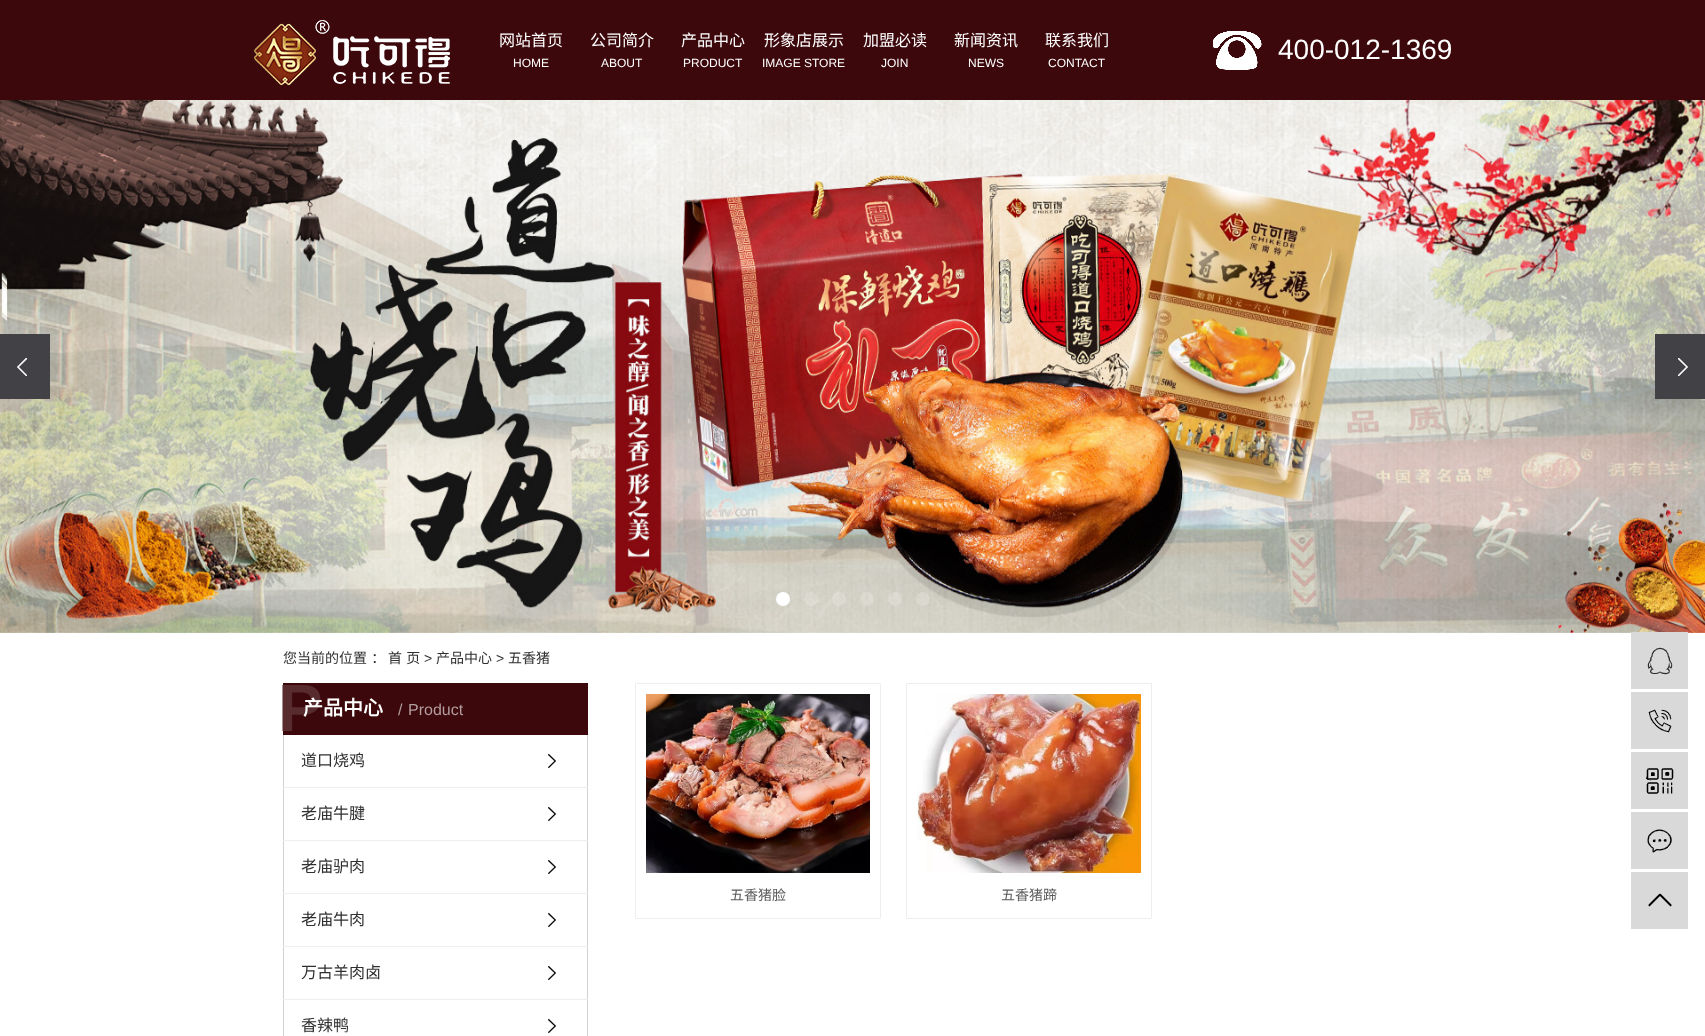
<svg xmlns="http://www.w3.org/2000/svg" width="1705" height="1036">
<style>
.a{font:16px Noto Sans CJK SC;fill:#fff}
.b{font:12px Liberation Sans;fill:#fff}
.c{font:28px Liberation Sans;fill:#fff}
.d{font:14px Noto Sans CJK SC;fill:#2f2f2f}
.e{font:14px Liberation Sans;fill:#2f2f2f}
.f{font:bold 67px Liberation Sans;fill:#582b2e}
.g{font:bold 20px Noto Sans CJK SC;fill:#fff}
.h{font:16px Liberation Sans;fill:#b19c9e}
.i{font:16px Noto Sans CJK SC;fill:#2f2f2f}
.j{font:14px Noto Sans CJK SC;fill:#5a5a5a}
</style>
<rect width="100%" height="100%" fill="#fff"/>
<path fill="#3c080c" d="M0 0h1705v100H0z"/>
<image href="1.png" x="254" y="20" width="196" height="66"/>
<image href="2.png" x="1213" y="31" width="49" height="39"/>
<image href="3.png" x="0" y="100" width="1705" height="533"/>
<path fill="#424246" d="M0 334h50v65H0z"/>
<image href="4.png" x="17" y="358" width="10" height="18"/>
<path fill="#424246" d="M1655 334h50v65H1655z"/>
<image href="5.png" x="1678" y="358" width="10" height="18"/>
<circle fill="#fff" cx="783" cy="599" r="7"/>
<circle fill="#ffffff33" cx="811" cy="599" r="7"/>
<circle fill="#ffffff33" cx="839" cy="599" r="7"/>
<circle fill="#ffffff33" cx="867" cy="599" r="7"/>
<circle fill="#ffffff33" cx="895" cy="599" r="7"/>
<circle fill="#ffffff33" cx="923" cy="599" r="7"/>
<path fill="#d9d9d9" d="M1631 632h57v57H1631z"/>
<image href="6.png" x="1647" y="647" width="26" height="28"/>
<path fill="#d9d9d9" d="M1631 692h57v57H1631z"/>
<image href="7.png" x="1648" y="709" width="24" height="24"/>
<path fill="#d9d9d9" d="M1631 752h57v57H1631z"/>
<image href="8.png" x="1646" y="768" width="28" height="26"/>
<path fill="#d9d9d9" d="M1631 812h57v57H1631z"/>
<image href="9.png" x="1647" y="829" width="25" height="24"/>
<path fill="#d9d9d9" d="M1631 872h57v57H1631z"/>
<image href="10.png" x="1648" y="893" width="24" height="14"/>
<path fill="#3c080c" d="M283 683h305v52H283z"/>
<path fill="#d2d2d2" d="M587 735h1v301H587z"/>
<path fill="#d2d2d2" d="M283 735h1v301H283z"/>
<path fill="#eee" d="M283 787h305v1H283z"/>
<image href="11.png" x="548" y="754" width="8" height="14"/>
<path fill="#eee" d="M283 840h305v1H283z"/>
<image href="11.png" x="548" y="807" width="8" height="14"/>
<path fill="#eee" d="M283 893h305v1H283z"/>
<image href="11.png" x="548" y="860" width="8" height="14"/>
<path fill="#eee" d="M283 946h305v1H283z"/>
<image href="11.png" x="548" y="913" width="8" height="14"/>
<path fill="#eee" d="M283 999h305v1H283z"/>
<image href="11.png" x="548" y="966" width="8" height="14"/>
<image href="11.png" x="548" y="1019" width="8" height="14"/>
<path fill="none" stroke="#eee" d="M635.5 683.5h245v235H635.5z"/>
<image href="12.png" x="646" y="694" width="224" height="179"/>
<path fill="none" stroke="#eee" d="M906.5 683.5h245v235H906.5z"/>
<image href="13.png" x="917" y="694" width="224" height="179"/>
<text class="a" x="499" y="46">网站首页</text>
<text class="b" x="513" y="67">HOME</text>
<text class="a" x="590" y="46">公司简介</text>
<text class="b" x="601" y="67">ABOUT</text>
<text class="a" x="681" y="46">产品中心</text>
<text class="b" x="683" y="67">PRODUCT</text>
<text class="a" x="764" y="46">形象店展示</text>
<text class="b" x="762" y="67">IMAGE STORE</text>
<text class="a" x="863" y="46">加盟必读</text>
<text class="b" x="881" y="67">JOIN</text>
<text class="a" x="954" y="46">新闻资讯</text>
<text class="b" x="968" y="67">NEWS</text>
<text class="a" x="1045" y="46">联系我们</text>
<text class="b" x="1048" y="67">CONTACT</text>
<text class="c" x="1278" y="59">400-012-1369</text>
<text class="d" x="283" y="663" word-spacing="1">您当前的位置 ：</text>
<text class="d" x="388" y="663" word-spacing="1">首 页</text>
<text class="e" x="424" y="663">&gt;</text>
<text class="d" x="436" y="663">产品中心</text>
<text class="e" x="496" y="663">&gt;</text>
<text class="d" x="508" y="663">五香猪</text>
<text class="f" x="278" y="731">P</text>
<text class="g" x="303" y="715">产品中心</text>
<text class="h" x="398" y="715">/</text>
<text class="h" x="408" y="715">Product</text>
<text class="i" x="301" y="766">道口烧鸡</text>
<text class="i" x="301" y="819">老庙牛腱</text>
<text class="i" x="301" y="872">老庙驴肉</text>
<text class="i" x="301" y="925">老庙牛肉</text>
<text class="i" x="301" y="978">万古羊肉卤</text>
<text class="i" x="301" y="1031">香辣鸭</text>
<text class="j" x="730" y="900">五香猪脸</text>
<text class="j" x="1001" y="900">五香猪蹄</text>
</svg>
